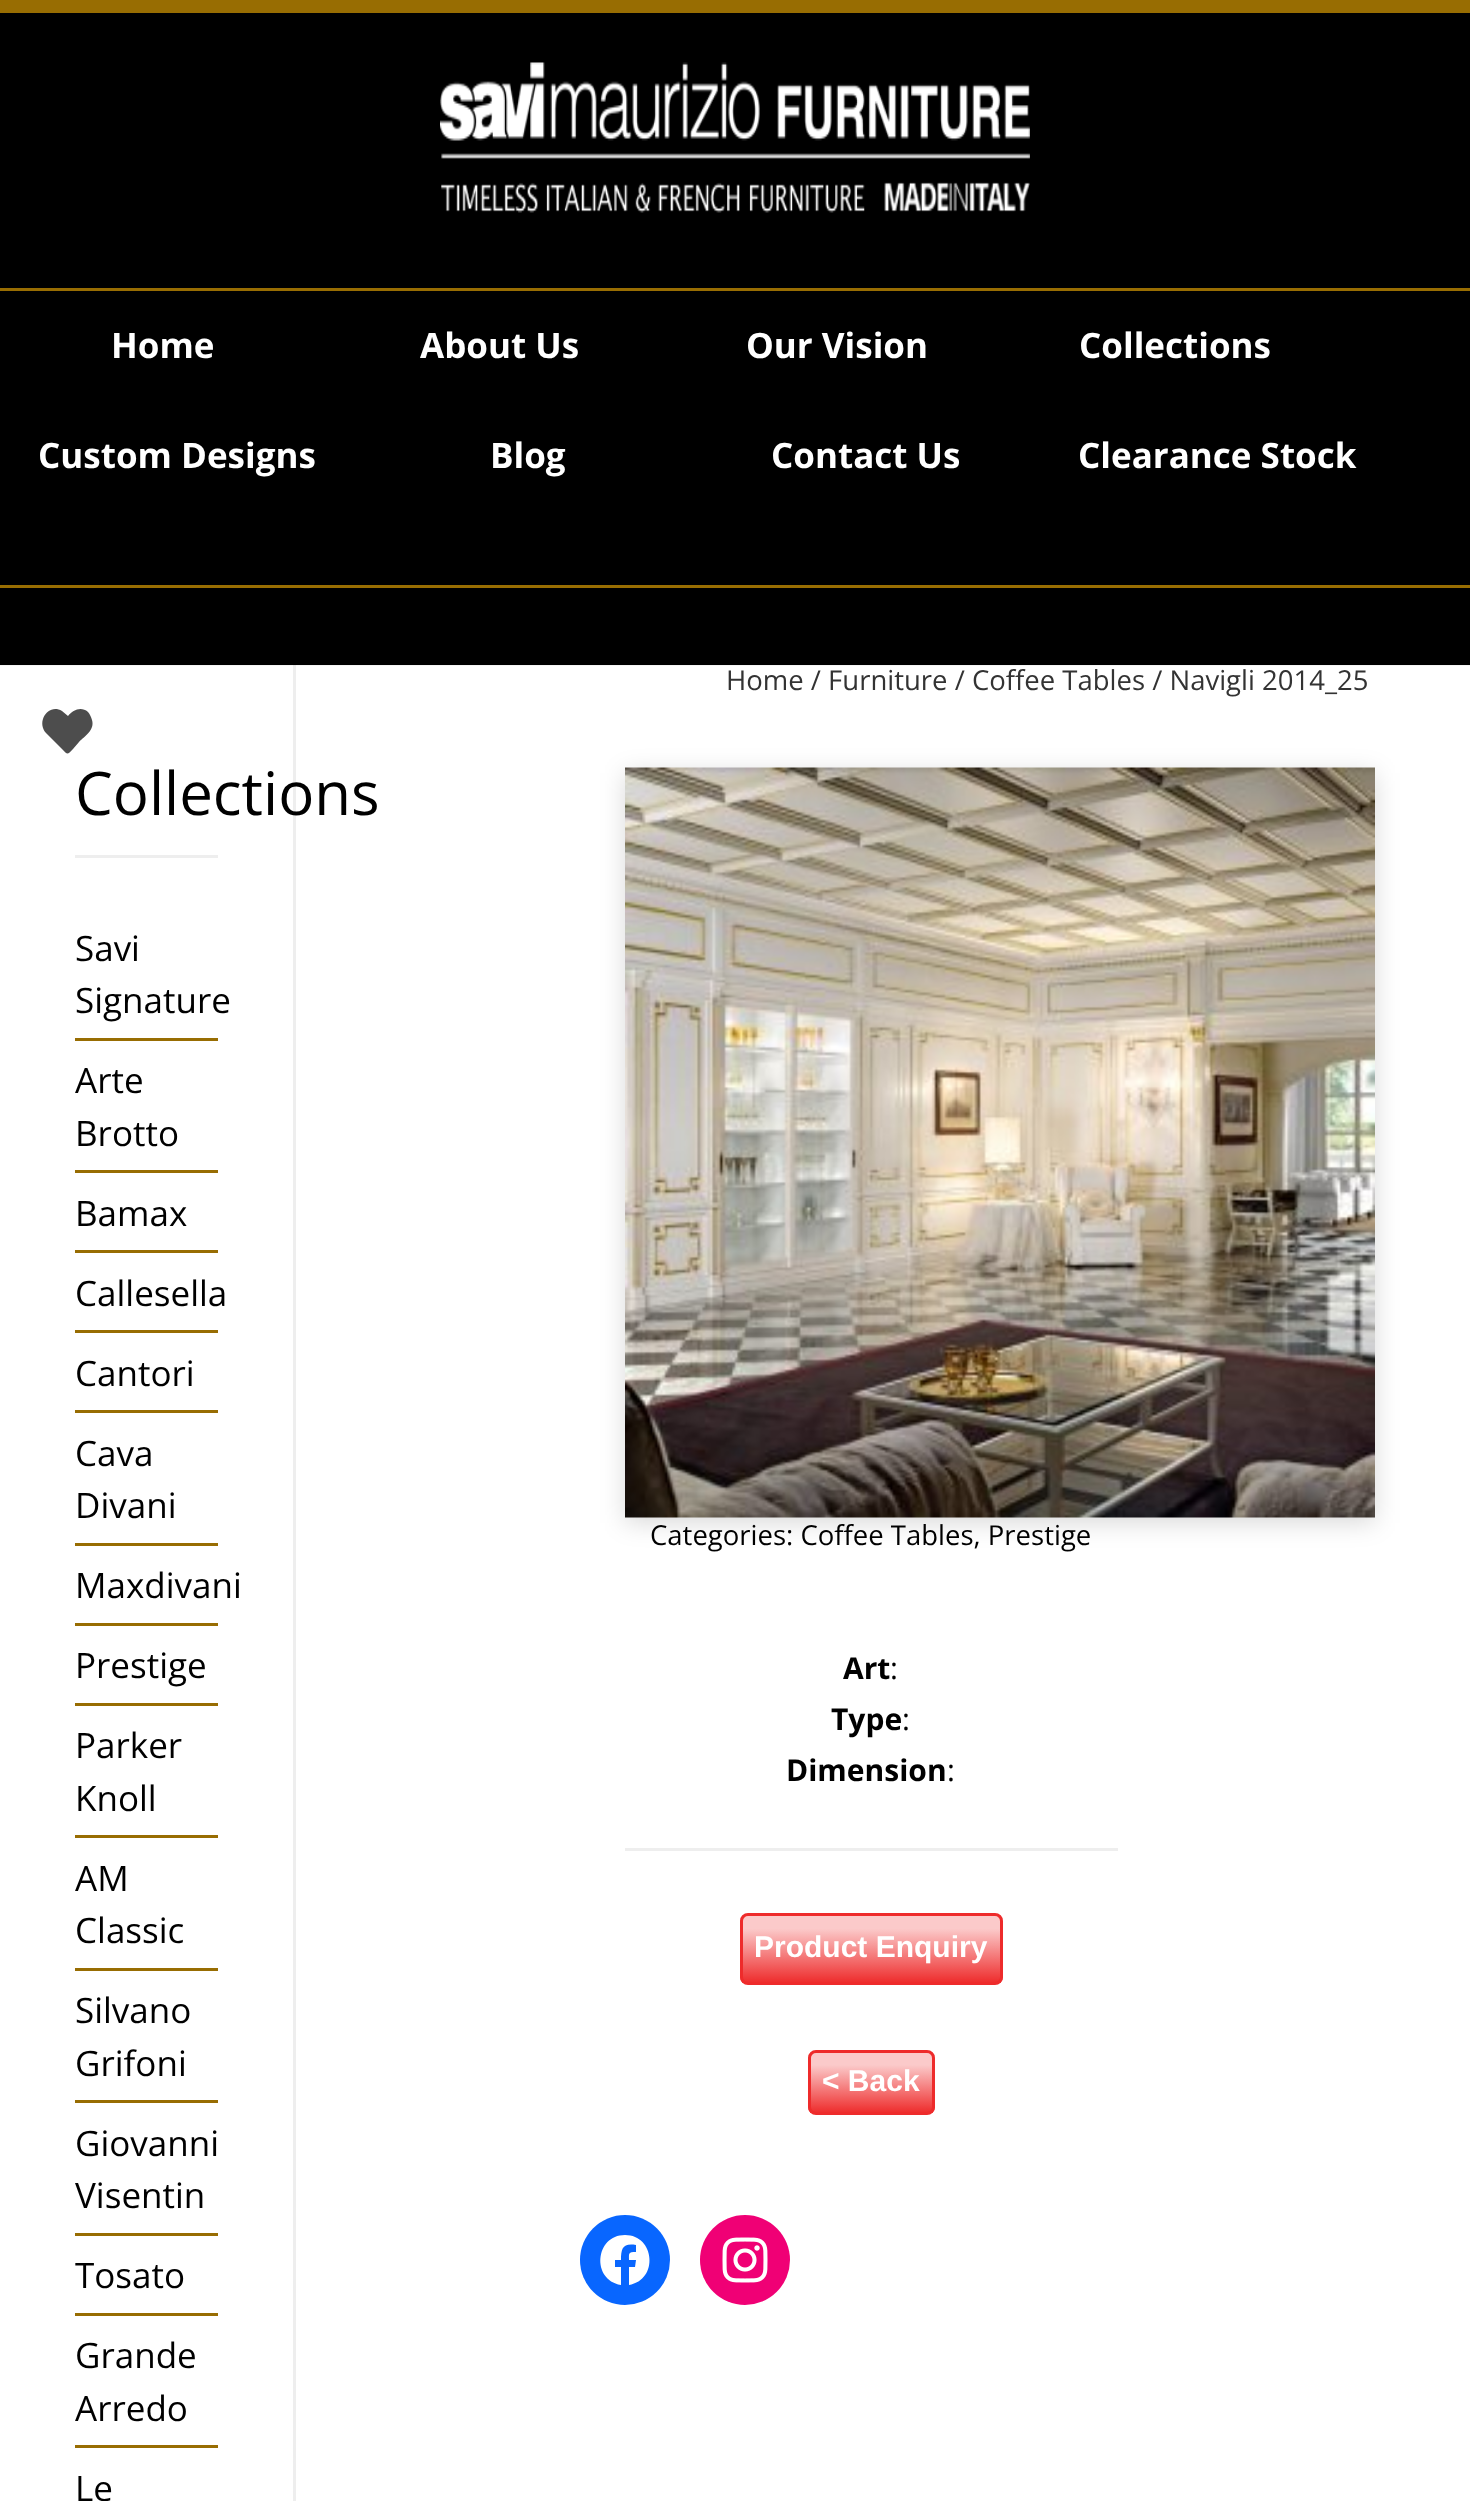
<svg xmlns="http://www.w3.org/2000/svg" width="1470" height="2501">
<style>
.a{font:bold 35px Open Sans;fill:#fff}
.b{font:60px Open Sans;fill:#000}
.c{font:35px Open Sans;fill:#000}
.d{font:27.5px Open Sans;fill:#333}
.e{font:27.5px Open Sans;fill:#000}
.f{font:bold 30px Open Sans;fill:#000}
.g{font:30px Open Sans;fill:#000}
.h{font:bold 30px Liberation Sans;fill:#fff}
</style>
<defs>
<clipPath id="clip1"><rect x="740" y="1913" width="263" height="72" rx="8"/></clipPath>
<linearGradient id="g1" gradientUnits="userSpaceOnUse" x1="743" y1="1915" x2="743" y2="1983"><stop offset="0.2" stop-color="#fbcaca"/><stop offset="1" stop-color="#ee2b2b"/></linearGradient>
<clipPath id="clip2"><rect x="808" y="2050" width="127" height="65" rx="8"/></clipPath>
<linearGradient id="g2" gradientUnits="userSpaceOnUse" x1="810" y1="2053" x2="810" y2="2113"><stop offset="0.2" stop-color="#fbcaca"/><stop offset="1" stop-color="#ee2b2b"/></linearGradient>
</defs>
<rect width="100%" height="100%" fill="#fff"/>
<path fill="#f5f5f5" d="M0 665h1470v1H0z"/>
<path fill="#000" d="M0 13h1470v652H0z"/>
<path fill="#986d02" d="M0 0h1470v13H0z"/>
<image href="1.png" x="440" y="62" width="590" height="151"/>
<path fill="#986d02" d="M0 288h1470v3H0z"/>
<path fill="#986d02" d="M0 585h1470v3H0z"/>
<path fill="#eee" d="M293 665h3v1836H293z"/>
<path fill="#e4e4e4" d="M293 665h3v1H293z"/>
<path fill="#eee" d="M75 855h143v3H75z"/>
<path fill="#986d02" d="M75 1038h143v3H75z"/>
<path fill="#986d02" d="M75 1170h143v3H75z"/>
<path fill="#986d02" d="M75 1250h143v3H75z"/>
<path fill="#986d02" d="M75 1330h143v3H75z"/>
<path fill="#986d02" d="M75 1410h143v3H75z"/>
<path fill="#986d02" d="M75 1543h143v3H75z"/>
<path fill="#986d02" d="M75 1623h143v3H75z"/>
<path fill="#986d02" d="M75 1703h143v3H75z"/>
<path fill="#986d02" d="M75 1835h143v3H75z"/>
<path fill="#986d02" d="M75 1968h143v3H75z"/>
<path fill="#986d02" d="M75 2100h143v3H75z"/>
<path fill="#986d02" d="M75 2233h143v3H75z"/>
<path fill="#986d02" d="M75 2313h143v3H75z"/>
<path fill="#986d02" d="M75 2445h143v3H75z"/>
<path fill="#4d4d4d" d="M88 712c-7-6-15-2-20 4l-6-5c-14-8-26 11-16 22l16 16c6 6 5 6 11 0l6-7c6-6 16-12 13-22c-1-3-2-6-4-8z"/>
<path fill="#00000026" filter="blur(12.5px)" d="M625 773h750v750H625z"/>
<image href="2.png" x="625" y="767" width="750" height="751"/>
<path fill="#eee" d="M625 1848h493v3H625z"/>
<g clip-path="url(#clip1)">
<path fill="url(#g1)" d="M740 1915h263v68H740z"/>
</g>
<rect fill="none" stroke="#ee2b2b" stroke-width="3" x="741.5" y="1914.5" width="260" height="69" rx="6.5"/>
<g clip-path="url(#clip2)">
<path fill="url(#g2)" d="M808 2053h127v60H808z"/>
</g>
<rect fill="none" stroke="#ee2b2b" stroke-width="3" x="809.5" y="2051.5" width="124" height="62" rx="6.5"/>
<circle fill="#0866ff" cx="625" cy="2260" r="45"/>
<path fill="#fff" d="M625 2235c-30 0-34 45-4 50v-18h-6v-7h6c0-12 2-17 15-15v7c-8 0-7 1-7 8h7l-1 7h-6v18c30-5 26-50-4-50z"/>
<circle fill="#f00075" cx="745" cy="2260" r="45"/>
<image href="3.png" x="722" y="2237" width="46" height="46"/>
<text class="a" x="111" y="358">Home</text>
<text class="a" x="420" y="358">About Us</text>
<text class="a" x="746" y="358">Our Vision</text>
<text class="a" x="1079" y="358">Collections</text>
<text class="a" x="38" y="468">Custom Designs</text>
<text class="a" x="490" y="468">Blog</text>
<text class="a" x="771" y="468">Contact Us</text>
<text class="a" x="1078" y="468">Clearance Stock</text>
<text class="b" x="75" y="815">Collections</text>
<text class="c" x="75" y="961">Savi</text>
<text class="c" x="75" y="1013">Signature</text>
<text class="c" x="75" y="1093">Arte</text>
<text class="c" x="75" y="1146">Brotto</text>
<text class="c" x="75" y="1226">Bamax</text>
<text class="c" x="75" y="1306">Callesella</text>
<text class="c" x="75" y="1386">Cantori</text>
<text class="c" x="75" y="1466">Cava</text>
<text class="c" x="75" y="1518">Divani</text>
<text class="c" x="75" y="1598">Maxdivani</text>
<text class="c" x="75" y="1678">Prestige</text>
<text class="c" x="75" y="1758">Parker</text>
<text class="c" x="75" y="1811">Knoll</text>
<text class="c" x="75" y="1891">AM</text>
<text class="c" x="75" y="1943">Classic</text>
<text class="c" x="75" y="2023">Silvano</text>
<text class="c" x="75" y="2076">Grifoni</text>
<text class="c" x="75" y="2156">Giovanni</text>
<text class="c" x="75" y="2208">Visentin</text>
<text class="c" x="75" y="2288">Tosato</text>
<text class="c" x="75" y="2368">Grande</text>
<text class="c" x="75" y="2421">Arredo</text>
<text class="c" x="75" y="2501">Le</text>
<text class="d" x="726" y="690">Home / Furniture / Coffee Tables / Navigli 2014_25</text>
<text class="e" x="650" y="1545">Categories: Coffee Tables, Prestige</text>
<text class="f" x="843" y="1679">Art</text>
<text class="g" x="890" y="1679">:</text>
<text class="f" x="831" y="1730">Type</text>
<text class="g" x="902" y="1730">:</text>
<text class="f" x="786" y="1781">Dimension</text>
<text class="g" x="947" y="1781">:</text>
<text class="h" x="754" y="1957">Product Enquiry</text>
<text class="h" x="822" y="2091">&lt; Back</text>
</svg>
